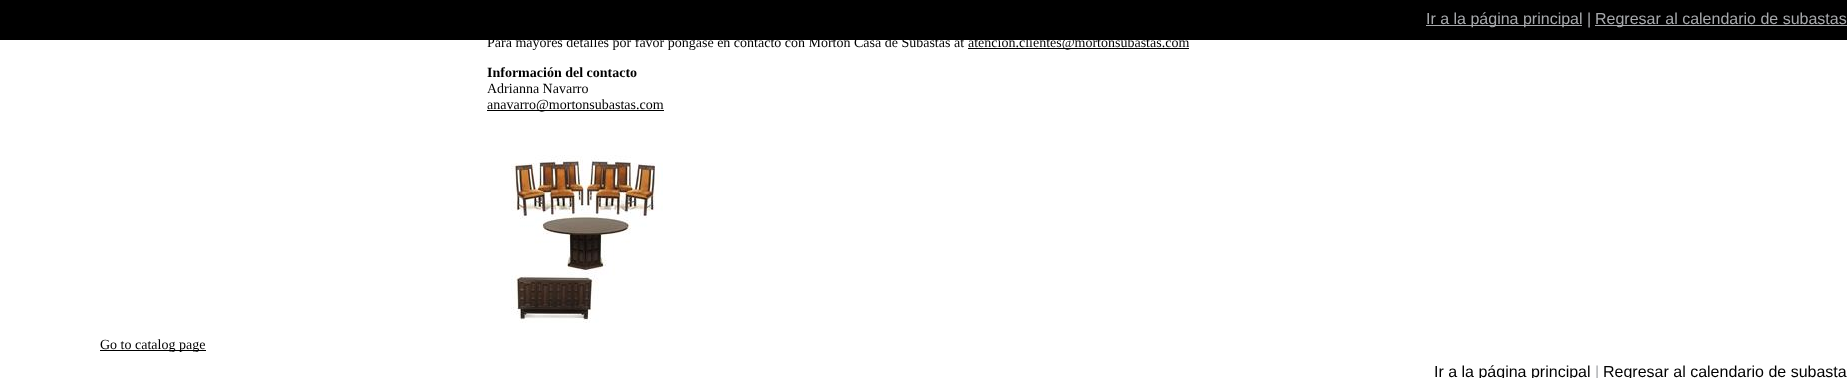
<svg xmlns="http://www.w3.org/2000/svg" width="1847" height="378">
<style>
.a{font:16px Liberation Sans;fill:#a7a9ac}
.b{font:14px Liberation Serif;fill:#000}
.c{font:bold 14px Liberation Serif;fill:#000}
.d{font:16px Liberation Sans;fill:#000}
</style>
<rect width="100%" height="100%" fill="#fff"/>
<path fill="#000" d="M0 0h1847v40H0z"/>
<path fill="#a7a9ac" d="M1426 25h156v1H1426z"/>
<path fill="#a7a9ac" d="M1595 25h252v1H1595z"/>
<path fill="#000" d="M968 48h221v1H968z"/>
<path fill="#000" d="M487 110h177v1H487z"/>
<image href="1.png" x="511" y="155" width="152" height="168"/>
<path fill="#000" d="M100 350h106v1H100z"/>
<text class="a" x="1426" y="24">Ir a la página principal |</text>
<text class="a" x="1595" y="24">Regresar al calendario de subastas</text>
<text class="b" x="487" y="47">Para mayores detalles por favor póngase en contacto con Morton Casa de Subastas at</text>
<text class="b" x="968" y="47">atencion.clientes@mortonsubastas.com</text>
<text class="c" x="487" y="77">Información del contacto</text>
<text class="b" x="487" y="93">Adrianna Navarro</text>
<text class="b" x="487" y="109">anavarro@mortonsubastas.com</text>
<text class="b" x="100" y="349">Go to catalog page</text>
<text class="d" x="1434" y="377">Ir a la página principal</text>
<text class="a" x="1595" y="377">|</text>
<text class="d" x="1603" y="377">Regresar al calendario de subasta</text>
</svg>
